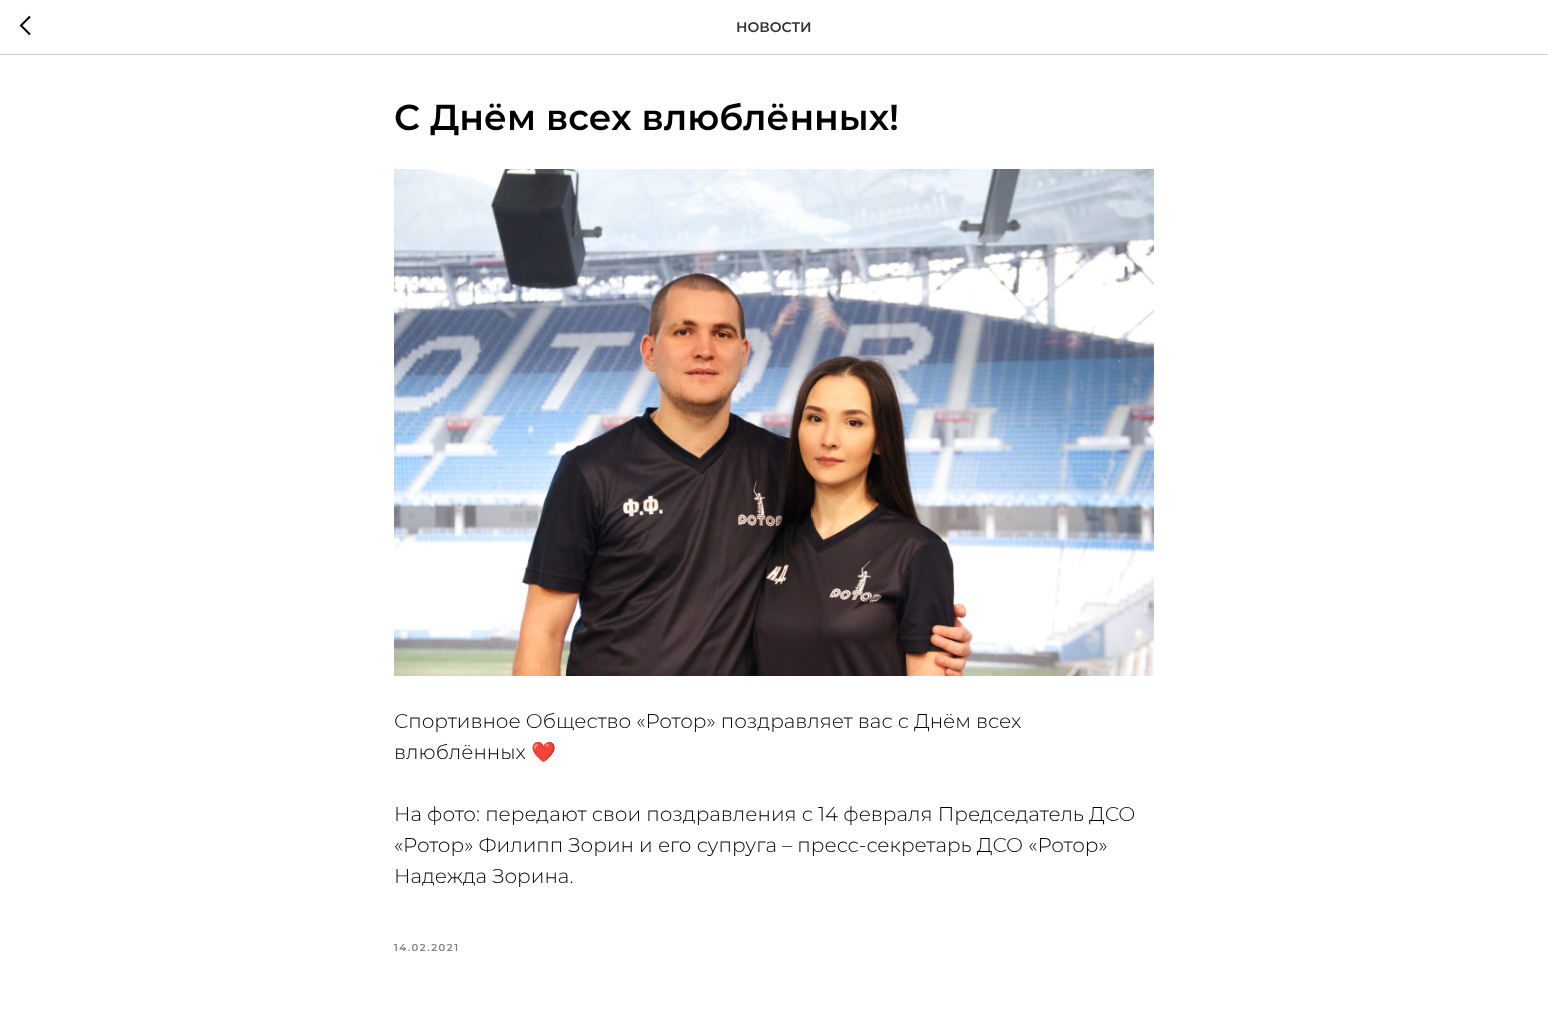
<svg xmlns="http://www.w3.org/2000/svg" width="1548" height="1017">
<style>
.a{font:600 14px Montserrat;fill:#333}
.b{font:600 36px Montserrat;fill:#000}
.c{font:300 20px Montserrat;fill:#000}
.d{font:20px Noto Color Emoji;fill:#000}
.e{font:600 10px Montserrat;letter-spacing:1.5px;fill:#808080}
</style>
<rect width="100%" height="100%" fill="#fff"/>
<path fill="#ccc" d="M0 54h1548v1H0z"/>
<path fill="none" stroke="#000" stroke-width="2" d="M30 34.5l-9-9l9-9"/>
<image href="1.png" x="394" y="169" width="760" height="507"/>
<text class="a" x="736" y="32">НОВОСТИ</text>
<text class="b" x="394" y="130">С Днём всех влюблённых!</text>
<text class="c" x="394" y="728">Спортивное Общество «Ротор» поздравляет вас с Днём всех</text>
<text class="c" x="394" y="759">влюблённых</text>
<text class="d" x="531" y="759">❤️</text>
<text class="c" x="394" y="821">На фото: передают свои поздравления с 14 февраля Председатель ДСО</text>
<text class="c" x="394" y="852">«Ротор» Филипп Зорин и его супруга – пресс-секретарь ДСО «Ротор»</text>
<text class="c" x="394" y="883">Надежда Зорина.</text>
<text class="e" x="394" y="951">14.02.2021</text>
</svg>
